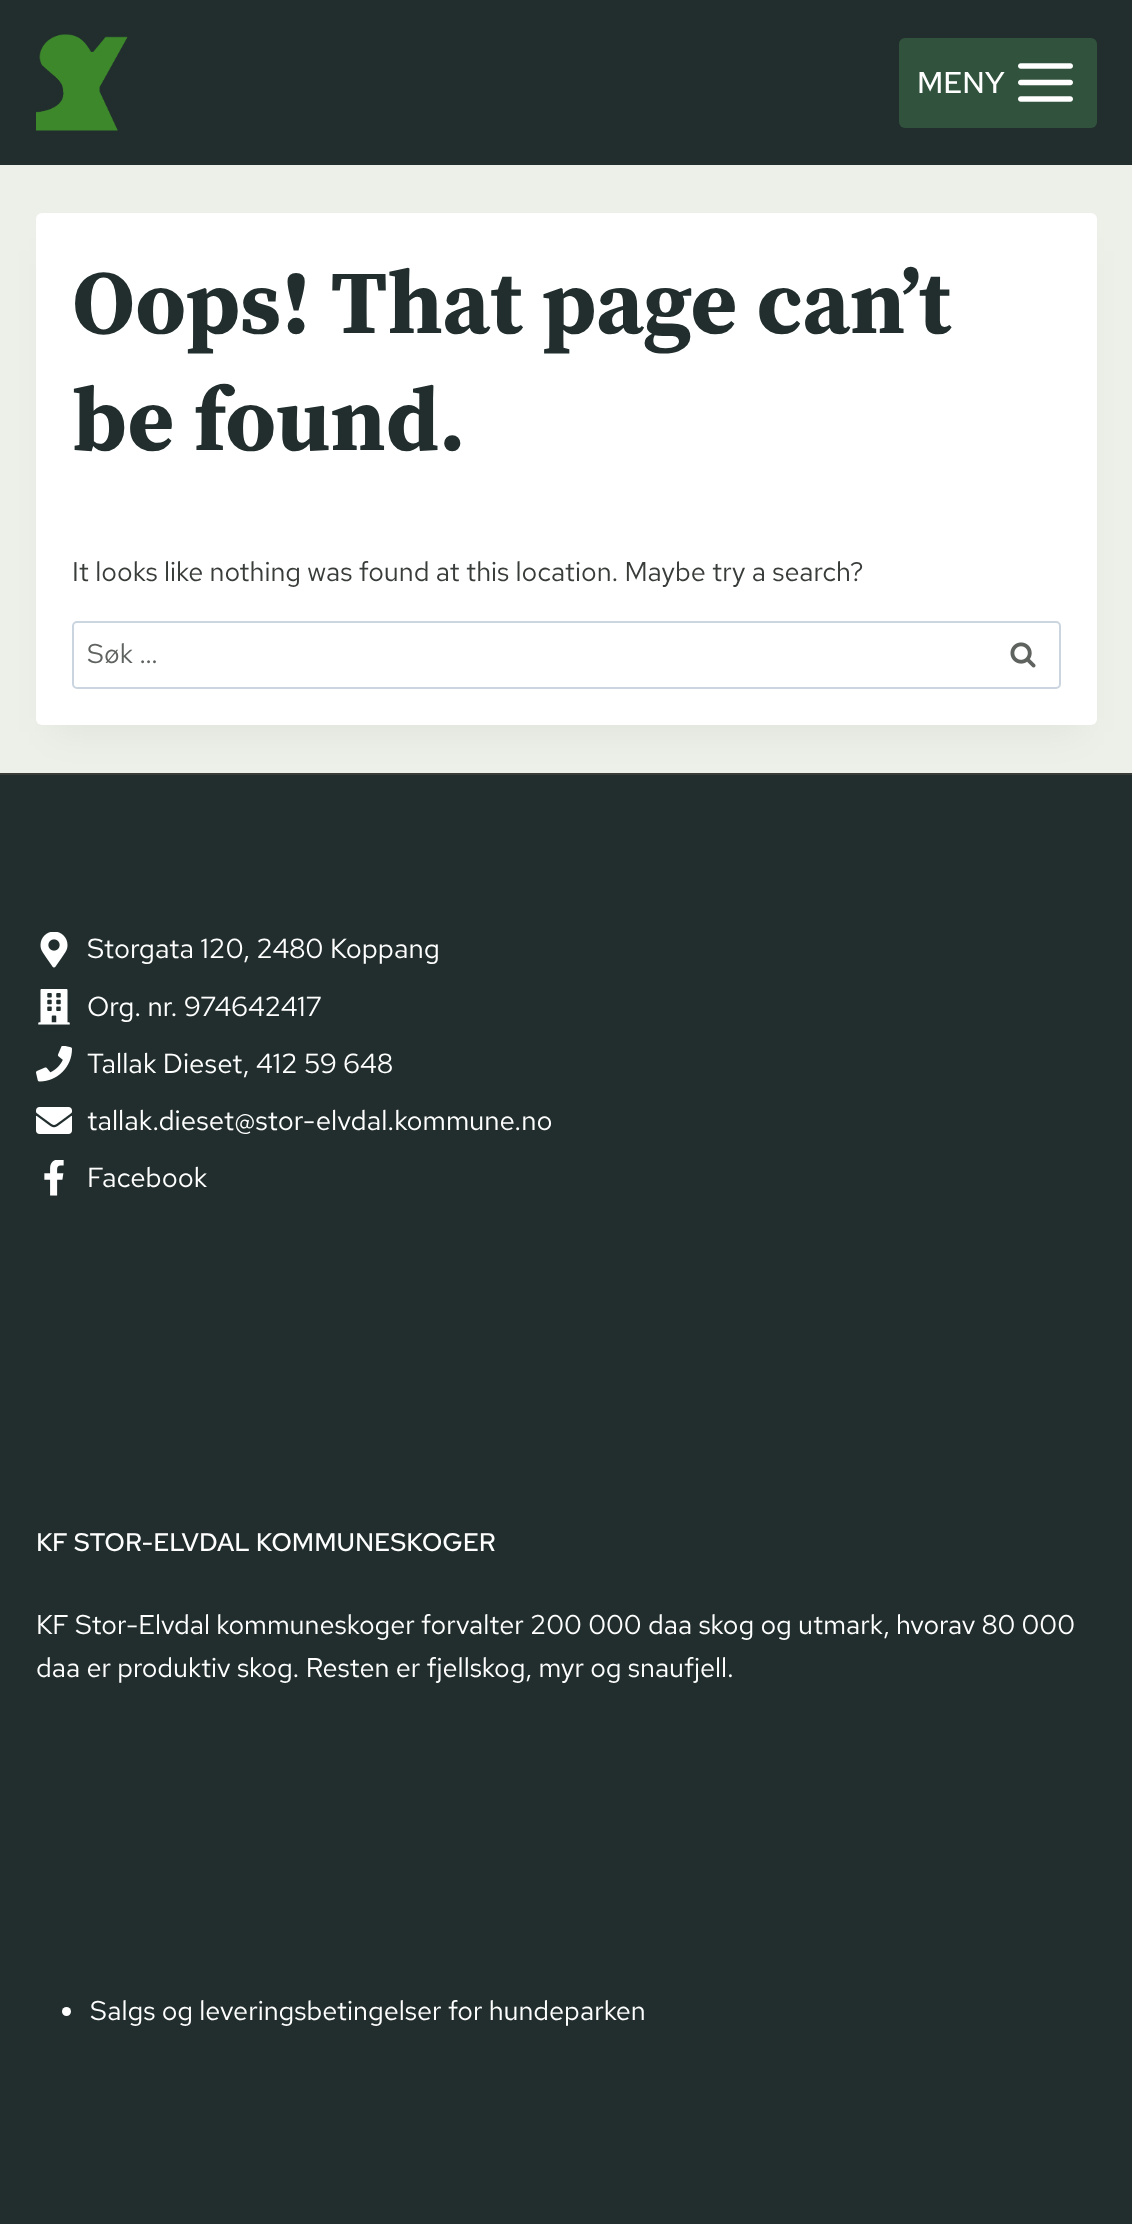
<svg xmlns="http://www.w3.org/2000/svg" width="1132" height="2224">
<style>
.a{font:500 30px Red Hat Text;fill:#fff}
.b{font:bold 90px Source Serif Pro;fill:#212e2d}
.c{font:27px Red Hat Text;fill:#393d3a}
.d{font:27px Red Hat Text;fill:#5f6360}
.e{font:27.6px Red Hat Text;fill:#fff}
.f{font:500 25.5px Red Hat Text;fill:#fff}
.g{font:27px Red Hat Text;fill:#fff}
</style>
<rect width="100%" height="100%" fill="#edf0e8"/>
<path fill="#212e2d" d="M0 0h1132v165H0z"/>
<image href="1.png" x="36" y="34" width="92" height="97"/>
<rect fill="#31533d" x="899" y="38" width="198" height="90" rx="6"/>
<image href="2.png" x="1018" y="63" width="55" height="39"/>
<path fill="#212e2d" d="M0 775h1132v1449H0z"/>
<path fill="#393d3a" d="M0 773h1132v2H0z"/>
<path fill="#0000000d" filter="blur(19px)" d="M51 251h1031v481H51z"/>
<rect fill="#fff" x="36" y="213" width="1061" height="512" rx="6"/>
<rect fill="none" stroke="#cbd5e0" stroke-width="2" x="73" y="622" width="987" height="66" rx="4"/>
<image href="3.png" x="1010" y="642" width="26" height="26"/>
<image href="4.png" x="40" y="932" width="28" height="36"/>
<image href="5.png" x="38" y="989" width="32" height="36"/>
<image href="6.png" x="36" y="1046" width="36" height="36"/>
<image href="7.png" x="36" y="1107" width="36" height="27"/>
<image href="8.png" x="44" y="1160" width="20" height="36"/>
<circle fill="#fff" cx="66.5" cy="2011.5" r="4.5"/>
<text class="a" x="917" y="93">MENY</text>
<text class="b" x="72" y="333">Oops! That page can’t</text>
<text class="b" x="72" y="450">be found.</text>
<text class="c" x="72" y="581">It looks like nothing was found at this location. Maybe try a search?</text>
<text class="d" x="87" y="663">Søk …</text>
<text class="e" x="87" y="958">Storgata 120, 2480 Koppang</text>
<text class="e" x="87" y="1016">Org. nr. 974642417</text>
<text class="e" x="87" y="1073">Tallak Dieset, 412 59 648</text>
<text class="e" x="87" y="1130">tallak.dieset@stor-elvdal.kommune.no</text>
<text class="e" x="87" y="1187">Facebook</text>
<text class="f" x="36" y="1551">KF STOR-ELVDAL KOMMUNESKOGER</text>
<text class="g" x="36" y="1634">KF Stor-Elvdal kommuneskoger forvalter 200 000 daa skog og utmark, hvorav 80 000</text>
<text class="g" x="36" y="1677">daa er produktiv skog. Resten er fjellskog, myr og snaufjell.</text>
<text class="g" x="90" y="2020">Salgs og leveringsbetingelser for hundeparken</text>
</svg>
